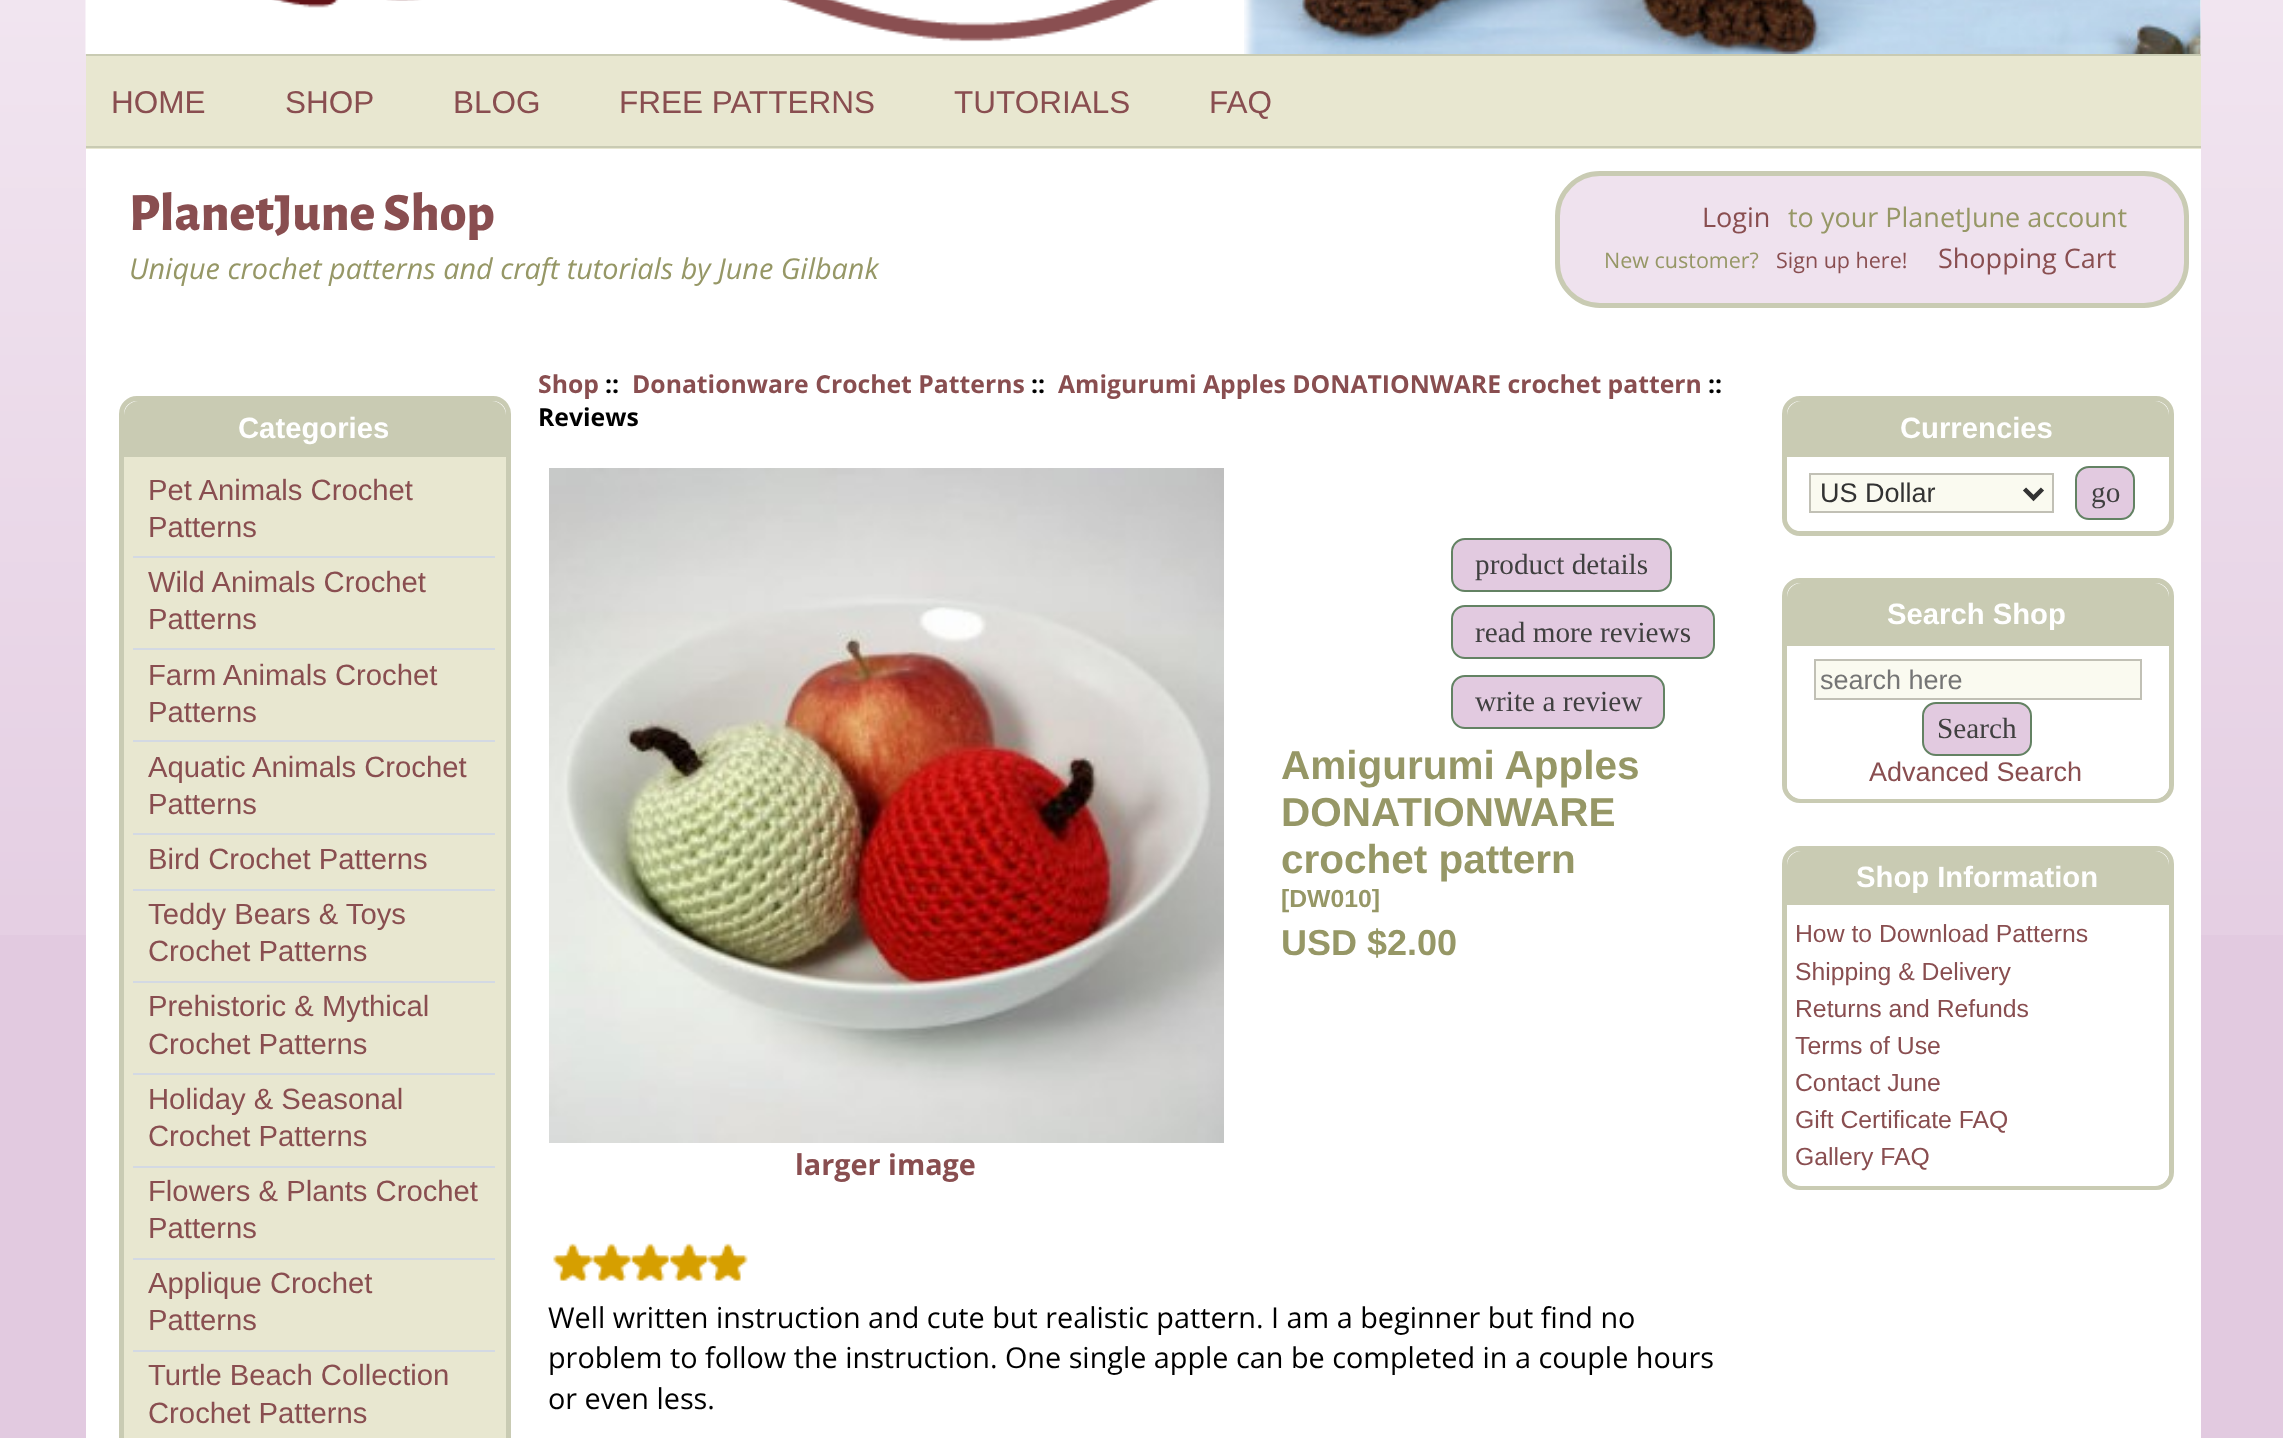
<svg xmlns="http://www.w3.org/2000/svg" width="2283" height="1438">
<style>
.a{font:31.5px Liberation Sans;fill:#894e50}
.b{font:800 54px Alegreya Sans;fill:#894e50}
.c{font:italic 28.8px Open Sans;fill:#969766}
.d{font:27px Open Sans;fill:#894e50}
.e{font:27px Open Sans;fill:#969766}
.f{font:21.5px Open Sans;fill:#969766}
.g{font:21.5px Open Sans;fill:#894e50}
.h{font:bold 24.75px Open Sans;fill:#894e50}
.i{font:bold 24.75px Open Sans;fill:#000}
.j{font:29.25px Liberation Serif;fill:#404040}
.k{font:bold 40.5px Liberation Sans;fill:#969766}
.l{font:bold 24.75px Liberation Sans;fill:#969766}
.m{font:bold 36px Liberation Sans;fill:#969766}
.n{font:bold 28.8px Open Sans;fill:#894e50}
.o{font:28.8px Open Sans;fill:#000}
.p{font:bold 29.25px Liberation Sans;fill:#fff}
.q{font:29.25px Liberation Sans;fill:#894e50}
.r{font:27px Liberation Sans;fill:#333}
.s{font:27px Liberation Sans;fill:#757575}
.t{font:27px Liberation Sans;fill:#894e50}
.u{font:24.75px Liberation Sans;fill:#894e50}
</style>
<rect width="100%" height="100%" fill="#e2cae0"/>
<image href="1.png" x="0" y="0" width="2283" height="935"/>
<path fill="#fff" d="M86 0h2115v1438H86z"/>
<image href="2.png" x="1244" y="0" width="957" height="54"/>
<image href="3.png" x="85" y="0" width="1074" height="54"/>
<path fill="#e8e7d0" d="M86 56h2115v93H86z"/>
<path fill="#c9cbb3" d="M86 54h2115v2H86z"/>
<path fill="#c9cbb3" d="M86 146h2115v2H86z"/>
<rect fill="#efe2ee" stroke="#c9cbb3" stroke-width="5" x="1557.5" y="173.5" width="629" height="132" rx="42.5"/>
<rect fill="#e2cae0" stroke="#638263" stroke-width="2" x="1452" y="539" width="219" height="52" rx="13"/>
<rect fill="#e2cae0" stroke="#638263" stroke-width="2" x="1452" y="606" width="262" height="52" rx="13"/>
<rect fill="#e2cae0" stroke="#638263" stroke-width="2" x="1452" y="676" width="212" height="52" rx="13"/>
<image href="4.png" x="549" y="468" width="675" height="675"/>
<image href="5.png" x="553" y="1243" width="195" height="38"/>
<rect fill="none" stroke="#c9cbb3" stroke-width="5" x="121.5" y="398.5" width="387" height="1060" rx="15.5"/>
<path fill="#c9cbb3" d="M138 401h354c7.5 0 14 6.5 14 14v42h-382v-42c0-7.5 6.5-14 14-14z"/>
<path fill="#e8e7d0" d="M124 457h382v981H124z"/>
<path fill="#d3d9e3" d="M133 556h362v2H133z"/>
<path fill="#d3d9e3" d="M133 648h362v2H133z"/>
<path fill="#d3d9e3" d="M133 740h362v2H133z"/>
<path fill="#d3d9e3" d="M133 833h362v2H133z"/>
<path fill="#d3d9e3" d="M133 889h362v2H133z"/>
<path fill="#d3d9e3" d="M133 981h362v2H133z"/>
<path fill="#d3d9e3" d="M133 1073h362v2H133z"/>
<path fill="#d3d9e3" d="M133 1166h362v2H133z"/>
<path fill="#d3d9e3" d="M133 1258h362v2H133z"/>
<path fill="#d3d9e3" d="M133 1350h362v2H133z"/>
<rect fill="none" stroke="#c9cbb3" stroke-width="5" x="1784.5" y="398.5" width="387" height="135" rx="15.5"/>
<path fill="#c9cbb3" d="M1801 401h354c7.5 0 14 6.5 14 14v42h-382v-42c0-7.5 6.5-14 14-14z"/>
<path fill="#fff" d="M1787 457h382v60c0 7.5-6.5 14-14 14h-354c-7.5 0-14-6.5-14-14z"/>
<path fill="#fafaf0" stroke="#c1c0b5" stroke-width="2" d="M1810 474h243v38H1810z"/>
<path fill="none" stroke="#333" stroke-width="4.5" d="M2024.5 489l9 9l9-9"/>
<rect fill="#e2cae0" stroke="#638263" stroke-width="2" x="2076" y="467" width="58" height="52" rx="13"/>
<rect fill="none" stroke="#c9cbb3" stroke-width="5" x="1784.5" y="580.5" width="387" height="220" rx="15.5"/>
<path fill="#c9cbb3" d="M1801 583h354c7.5 0 14 6.5 14 14v49h-382v-49c0-7.5 6.5-14 14-14z"/>
<path fill="#fff" d="M1787 646h382v139c0 7.5-6.5 14-14 14h-354c-7.5 0-14-6.5-14-14z"/>
<path fill="#fafaf0" stroke="#c1c0b5" stroke-width="2" d="M1815 660h326v39H1815z"/>
<rect fill="#e2cae0" stroke="#638263" stroke-width="2" x="1923" y="703" width="108" height="52" rx="13"/>
<rect fill="none" stroke="#c9cbb3" stroke-width="5" x="1784.5" y="848.5" width="387" height="339" rx="15.5"/>
<path fill="#c9cbb3" d="M1801 851h354c7.5 0 14 6.5 14 14v40h-382v-40c0-7.5 6.5-14 14-14z"/>
<path fill="#fff" d="M1787 905h382v267c0 7.5-6.5 14-14 14h-354c-7.5 0-14-6.5-14-14z"/>
<text class="a" x="111" y="113">HOME</text>
<text class="a" x="285" y="113">SHOP</text>
<text class="a" x="453" y="113">BLOG</text>
<text class="a" x="619" y="113">FREE PATTERNS</text>
<text class="a" x="954" y="113">TUTORIALS</text>
<text class="a" x="1209" y="113">FAQ</text>
<text class="b" x="129" y="230">PlanetJune Shop</text>
<text class="c" x="129" y="279">Unique crochet patterns and craft tutorials by June Gilbank</text>
<text class="d" x="1702" y="227">Login</text>
<text class="e" x="1788" y="227">to your PlanetJune account</text>
<text class="f" x="1604" y="268">New customer?</text>
<text class="g" x="1776" y="268">Sign up here!</text>
<text class="d" x="1938" y="268">Shopping Cart</text>
<text class="h" x="538" y="393">Shop</text>
<text class="i" x="605" y="393">::</text>
<text class="h" x="632" y="393">Donationware Crochet Patterns</text>
<text class="i" x="1031" y="393">::</text>
<text class="h" x="1058" y="393">Amigurumi Apples DONATIONWARE crochet pattern</text>
<text class="i" x="1708" y="393">::</text>
<text class="i" x="538" y="426">Reviews</text>
<text class="j" x="1475" y="574">product details</text>
<text class="j" x="1475" y="642">read more reviews</text>
<text class="j" x="1475" y="711">write a review</text>
<text class="k" x="1281" y="779">Amigurumi Apples</text>
<text class="k" x="1281" y="826">DONATIONWARE</text>
<text class="k" x="1281" y="873">crochet pattern</text>
<text class="l" x="1281" y="907">[DW010]</text>
<text class="m" x="1281" y="955">USD $2.00</text>
<text class="n" x="795" y="1175">larger image</text>
<text class="o" x="548" y="1328">Well written instruction and cute but realistic pattern. I am a beginner but find no</text>
<text class="o" x="548" y="1368">problem to follow the instruction. One single apple can be completed in a couple hours</text>
<text class="o" x="548" y="1409">or even less.</text>
<text class="p" x="238" y="438">Categories</text>
<text class="q" x="148" y="500">Pet Animals Crochet</text>
<text class="q" x="148" y="537">Patterns</text>
<text class="q" x="148" y="592">Wild Animals Crochet</text>
<text class="q" x="148" y="629">Patterns</text>
<text class="q" x="148" y="685">Farm Animals Crochet</text>
<text class="q" x="148" y="722">Patterns</text>
<text class="q" x="148" y="777">Aquatic Animals Crochet</text>
<text class="q" x="148" y="814">Patterns</text>
<text class="q" x="148" y="869">Bird Crochet Patterns</text>
<text class="q" x="148" y="924">Teddy Bears &amp; Toys</text>
<text class="q" x="148" y="961">Crochet Patterns</text>
<text class="q" x="148" y="1016">Prehistoric &amp; Mythical</text>
<text class="q" x="148" y="1054">Crochet Patterns</text>
<text class="q" x="148" y="1109">Holiday &amp; Seasonal</text>
<text class="q" x="148" y="1146">Crochet Patterns</text>
<text class="q" x="148" y="1201">Flowers &amp; Plants Crochet</text>
<text class="q" x="148" y="1238">Patterns</text>
<text class="q" x="148" y="1293">Applique Crochet</text>
<text class="q" x="148" y="1330">Patterns</text>
<text class="q" x="148" y="1385">Turtle Beach Collection</text>
<text class="q" x="148" y="1423">Crochet Patterns</text>
<text class="p" x="1900" y="438">Currencies</text>
<text class="r" x="1820" y="502">US Dollar</text>
<text class="j" x="2091" y="502">go</text>
<text class="p" x="1887" y="624">Search Shop</text>
<text class="s" x="1820" y="689">search here</text>
<text class="j" x="1937" y="738">Search</text>
<text class="t" x="1869" y="781">Advanced Search</text>
<text class="p" x="1856" y="887">Shop Information</text>
<text class="u" x="1795" y="942">How to Download Patterns</text>
<text class="u" x="1795" y="980">Shipping &amp; Delivery</text>
<text class="u" x="1795" y="1017">Returns and Refunds</text>
<text class="u" x="1795" y="1054">Terms of Use</text>
<text class="u" x="1795" y="1091">Contact June</text>
<text class="u" x="1795" y="1128">Gift Certificate FAQ</text>
<text class="u" x="1795" y="1165">Gallery FAQ</text>
</svg>
